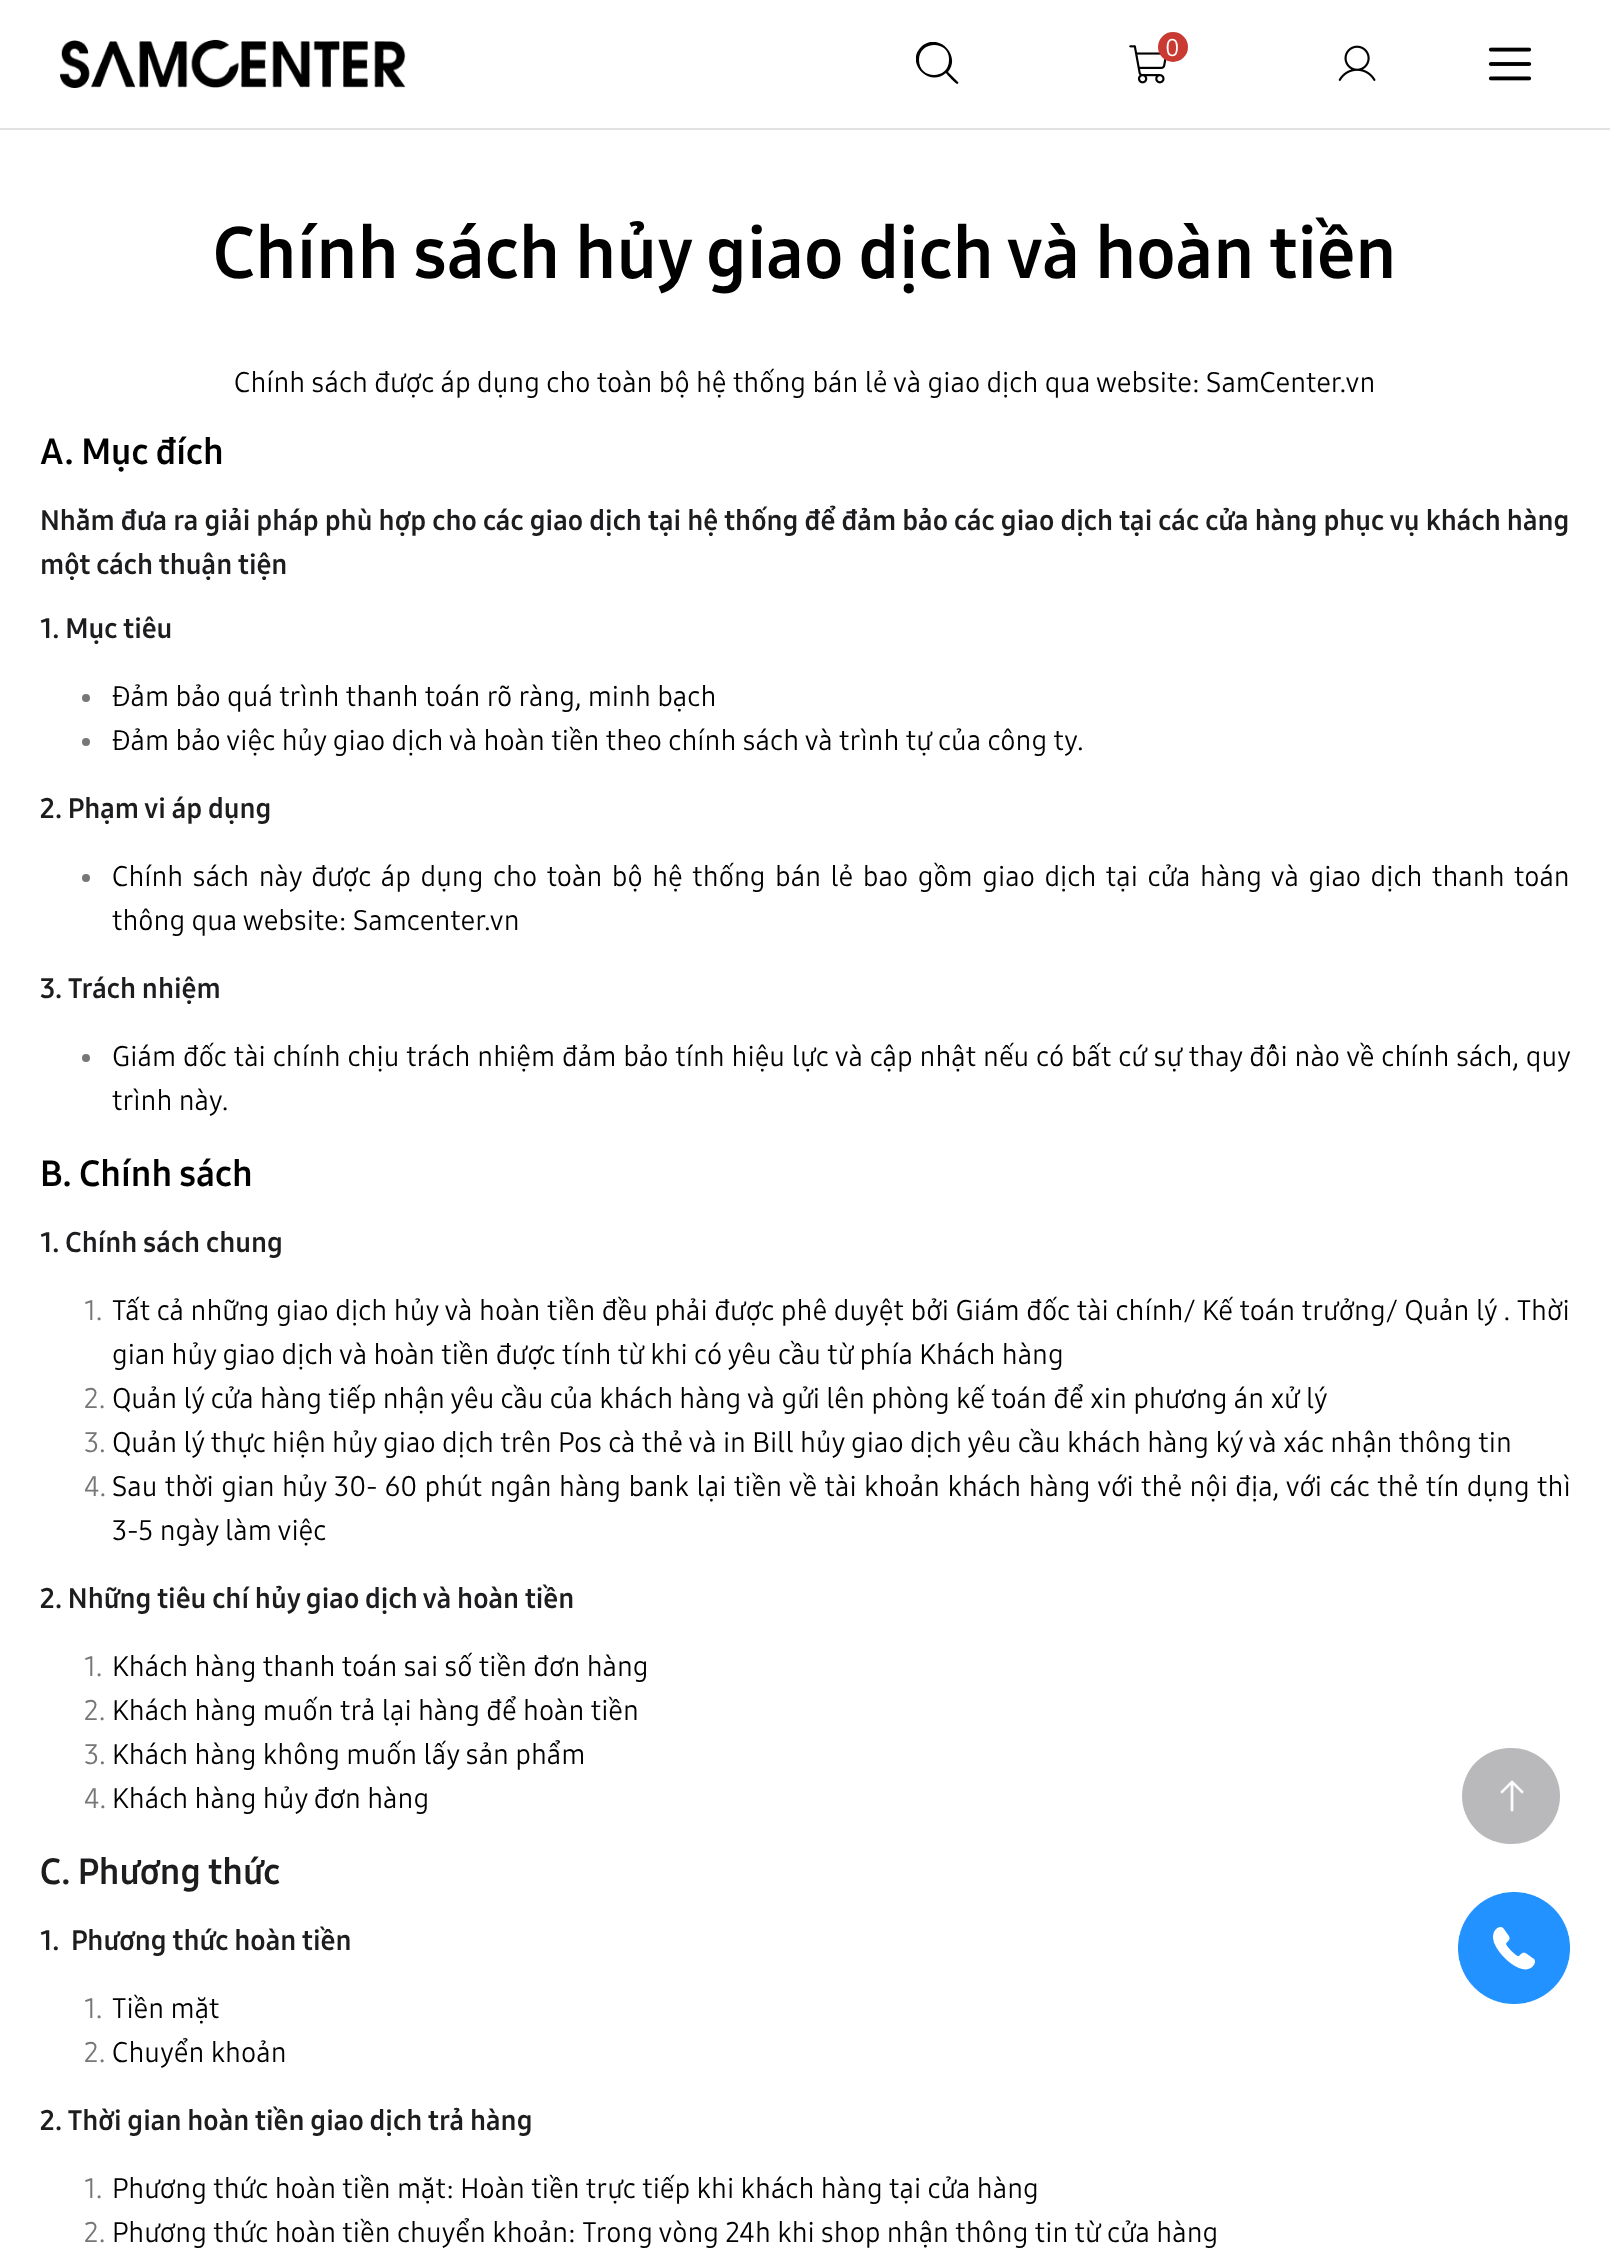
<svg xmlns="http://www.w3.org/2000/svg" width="1610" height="2249">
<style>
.a{font:24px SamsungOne;fill:#fff}
.b{font:bold 72px SamsungOne;fill:#000}
.c{font:28px SamsungOne;fill:#000}
.d{font:bold 36px SamsungOne;fill:#000}
.e{font:bold 28px SamsungOne;fill:#1d1d1f}
.f{font:28px SamsungOne;fill:#777}
.g{font:bold 36px SamsungOne;fill:#1d1d1f}
</style>
<defs>
<clipPath id="clip1"><path d="M916 42h46v44H916z"/></clipPath>
</defs>
<rect width="100%" height="100%" fill="#fff"/>
<path fill="#e2e2e2" d="M0 128h1610v2H0z"/>
<image href="1.png" x="60" y="39" width="346" height="49"/>
<g clip-path="url(#clip1)">
<path fill="#000" d="M958 82l-10-10c14-17-11-41-27-25c-16 16 8 41 25 26c1 2 10 11 11 11c1 0 2-1 1-2zm-39-22c0-20 31-20 30 0c0 20-30 20-30 0z"/>
</g>
<image href="2.png" x="1129" y="45" width="38" height="39"/>
<circle fill="#c83a32" cx="1173" cy="47" r="15"/>
<image href="3.png" x="1338" y="45" width="38" height="36"/>
<image href="4.png" x="1488" y="47" width="44" height="34"/>
<circle fill="#777" cx="86" cy="698" r="4"/>
<circle fill="#777" cx="86" cy="742" r="4"/>
<circle fill="#777" cx="86" cy="878" r="4"/>
<circle fill="#777" cx="86" cy="1058" r="4"/>
<rect fill="#b9b9bb" x="1462" y="1748" width="98" height="96" rx="48"/>
<image href="5.png" x="1500" y="1780" width="24" height="32"/>
<image href="6.png" x="1458" y="1892" width="112" height="112"/>
<text class="a" x="1165" y="56">0</text>
<text class="b" x="213" y="278">Chính sách hủy giao dịch và hoàn tiền</text>
<text class="c" x="234" y="392">Chính sách được áp dụng cho toàn bộ hệ thống bán lẻ và giao dịch qua website: SamCenter.vn</text>
<text class="d" x="40" y="464">A. Mục đích</text>
<text class="e" x="40" y="530" word-spacing="0.3">Nhằm đưa ra giải pháp phù hợp cho các giao dịch tại hệ thống để đảm bảo các giao dịch tại các cửa hàng phục vụ khách hàng</text>
<text class="e" x="40" y="574">một cách thuận tiện</text>
<text class="e" x="40" y="638">1. Mục tiêu</text>
<text class="c" x="112" y="706">Đảm bảo quá trình thanh toán rõ ràng, minh bạch</text>
<text class="c" x="112" y="750">Đảm bảo việc hủy giao dịch và hoàn tiền theo chính sách và trình tự của công ty.</text>
<text class="e" x="40" y="818">2. Phạm vi áp dụng</text>
<text class="c" x="112" y="886" word-spacing="3.2">Chính sách này được áp dụng cho toàn bộ hệ thống bán lẻ bao gồm giao dịch tại cửa hàng và giao dịch thanh toán</text>
<text class="c" x="112" y="930">thông qua website: Samcenter.vn</text>
<text class="e" x="40" y="998">3. Trách nhiệm</text>
<text class="c" x="112" y="1066" word-spacing="0.5">Giám đốc tài chính chịu trách nhiệm đảm bảo tính hiệu lực và cập nhật nếu có bất cứ sự thay đổi nào về chính sách, quy</text>
<text class="c" x="112" y="1110">trình này.</text>
<text class="d" x="40" y="1186">B. Chính sách</text>
<text class="e" x="40" y="1252">1. Chính sách chung</text>
<text class="f" x="84" y="1320">1.</text>
<text class="c" x="112" y="1320" word-spacing="0.25">Tất cả những giao dịch hủy và hoàn tiền đều phải được phê duyệt bởi Giám đốc tài chính/ Kế toán trưởng/ Quản lý . Thời</text>
<text class="c" x="112" y="1364">gian hủy giao dịch và hoàn tiền được tính từ khi có yêu cầu từ phía Khách hàng</text>
<text class="f" x="84" y="1408">2.</text>
<text class="c" x="112" y="1408">Quản lý cửa hàng tiếp nhận yêu cầu của khách hàng và gửi lên phòng kế toán để xin phương án xử lý</text>
<text class="f" x="84" y="1452">3.</text>
<text class="c" x="112" y="1452">Quản lý thực hiện hủy giao dịch trên Pos cà thẻ và in Bill hủy giao dịch yêu cầu khách hàng ký và xác nhận thông tin</text>
<text class="f" x="84" y="1496">4.</text>
<text class="c" x="112" y="1496" word-spacing="1.1">Sau thời gian hủy 30- 60 phút ngân hàng bank lại tiền về tài khoản khách hàng với thẻ nội địa, với các thẻ tín dụng thì</text>
<text class="c" x="112" y="1540">3-5 ngày làm việc</text>
<text class="e" x="40" y="1608">2. Những tiêu chí hủy giao dịch và hoàn tiền</text>
<text class="f" x="84" y="1676">1.</text>
<text class="c" x="112" y="1676">Khách hàng thanh toán sai số tiền đơn hàng</text>
<text class="f" x="84" y="1720">2.</text>
<text class="c" x="112" y="1720">Khách hàng muốn trả lại hàng để hoàn tiền</text>
<text class="f" x="84" y="1764">3.</text>
<text class="c" x="112" y="1764">Khách hàng không muốn lấy sản phẩm</text>
<text class="f" x="84" y="1808">4.</text>
<text class="c" x="112" y="1808">Khách hàng hủy đơn hàng</text>
<text class="g" x="40" y="1884">C. Phương thức</text>
<text class="e" xml:space="preserve" x="40" y="1950">1.  Phương thức hoàn tiền</text>
<text class="f" x="84" y="2018">1.</text>
<text class="c" x="112" y="2018">Tiền mặt</text>
<text class="f" x="84" y="2062">2.</text>
<text class="c" x="112" y="2062">Chuyển khoản</text>
<text class="e" x="40" y="2130">2. Thời gian hoàn tiền giao dịch trả hàng</text>
<text class="f" x="84" y="2198">1.</text>
<text class="c" x="112" y="2198">Phương thức hoàn tiền mặt: Hoàn tiền trực tiếp khi khách hàng tại cửa hàng</text>
<text class="f" x="84" y="2242">2.</text>
<text class="c" x="112" y="2242">Phương thức hoàn tiền chuyển khoản: Trong vòng 24h khi shop nhận thông tin từ cửa hàng</text>
</svg>
